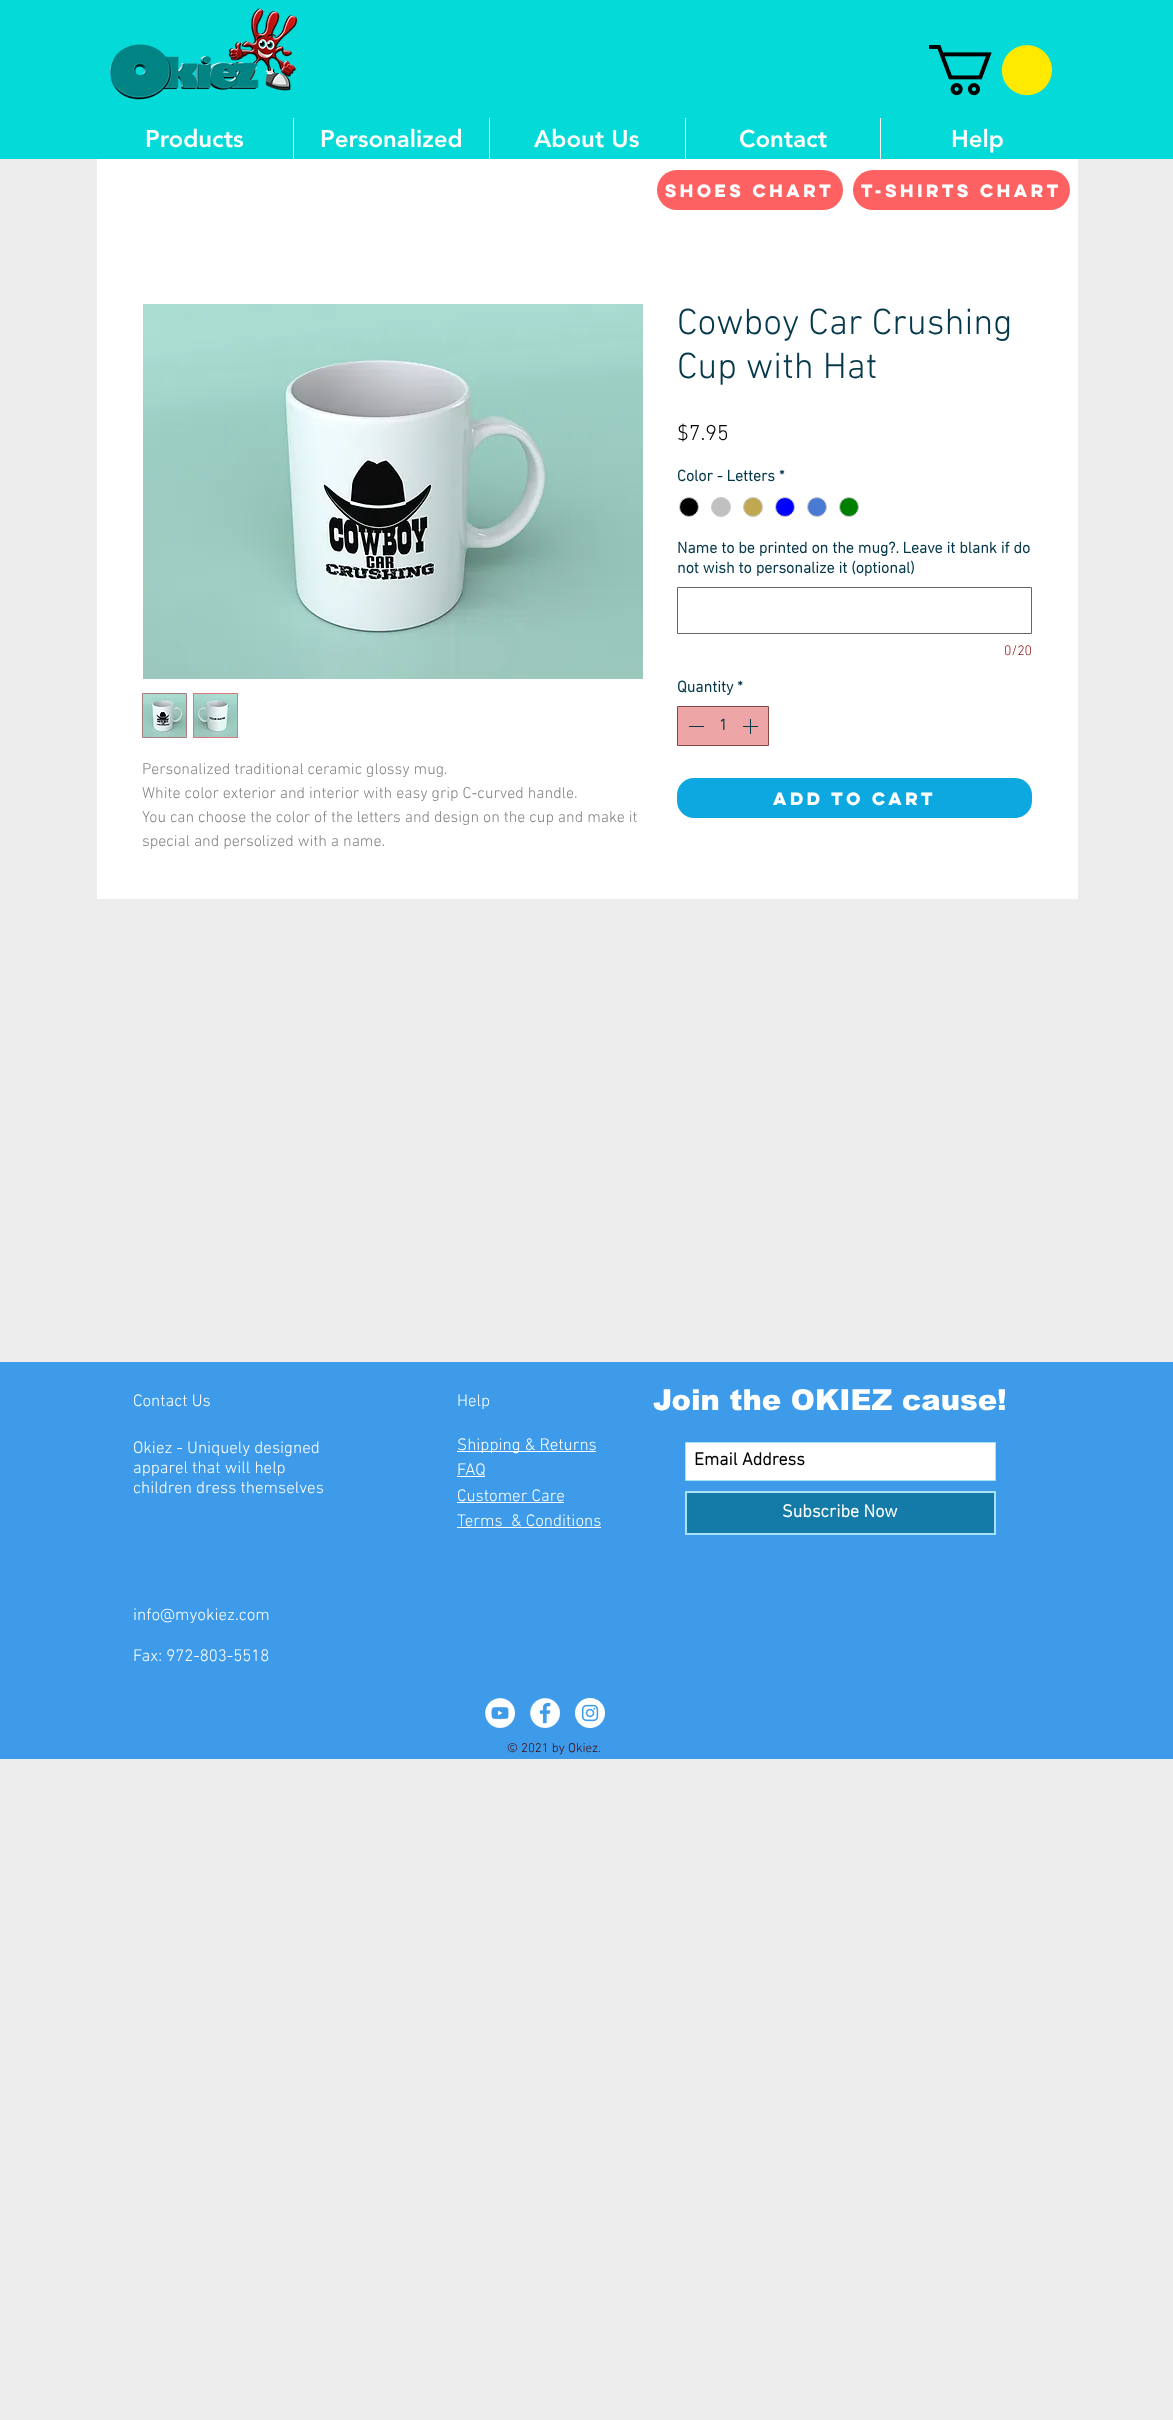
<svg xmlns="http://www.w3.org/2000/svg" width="1173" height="2420">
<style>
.a{font:900 24px 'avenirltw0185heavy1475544';fill:#fff}
.b{font:bold 16px 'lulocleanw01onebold';fill:#fff}
.c{font:300 16px 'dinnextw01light';fill:#828282}
.d{font:300 37px 'dinnextw01light';fill:#04384a}
.e{font:300 22px 'dinnextw01light';fill:#000}
.f{font:bold 16px 'dinnextw01light';fill:#04384a}
.g{font:300 14px 'dinnextw01light';fill:#880a0c}
.h{font:300 17px 'dinnextw01light';fill:#fff}
.i{font:900 29px arial;fill:#fff}
.j{font:bold 18px 'dinnextw01light';fill:#000}
.k{font:bold 18px 'dinnextw01light';fill:#fff}
.l{font:300 13px 'dinnextw01light';fill:#440506}
</style>
<rect width="100%" height="100%" fill="#ededed"/>
<path fill="#04dbd9" d="M0 0h1173v159H0z"/>
<image href="1.png" x="109" y="8" width="189" height="92"/>
<image href="2.png" x="929" y="45" width="123" height="51"/>
<path fill="#fff" d="M293 118h1v41H293z"/>
<path fill="#fff" d="M489 118h1v41H489z"/>
<path fill="#fff" d="M685 118h1v41H685z"/>
<path fill="#fff" d="M880 118h1v41H880z"/>
<path fill="#fff" d="M97 159h981v740H97z"/>
<rect fill="#fe6161" x="657" y="170" width="186" height="40" rx="20"/>
<rect fill="#fe6161" x="853" y="170" width="217" height="40" rx="20"/>
<image href="3.png" x="143" y="304" width="500" height="375"/>
<path fill="none" stroke="#a97d7e" d="M142.5 693.5h44v44H142.5z"/>
<image href="4.png" x="143" y="694" width="43" height="43"/>
<path fill="#dd7779" d="M193 693h45v45H193z"/>
<image href="5.png" x="194" y="694" width="43" height="43"/>
<circle fill="#000" stroke="#c9c9c9" cx="689" cy="507" r="9.5"/>
<circle fill="#c0c0c0" stroke="#c9c9c9" cx="721" cy="507" r="9.5"/>
<circle fill="#c0a853" stroke="#c9c9c9" cx="753" cy="507" r="9.5"/>
<circle fill="#00f" stroke="#c9c9c9" cx="785" cy="507" r="9.5"/>
<circle fill="#4a7bd4" stroke="#c9c9c9" cx="817" cy="507" r="9.5"/>
<circle fill="#008000" stroke="#c9c9c9" cx="849" cy="507" r="9.5"/>
<path fill="none" stroke="#666" d="M677.5 587.5h354v46H677.5z"/>
<path fill="#eda5a6" stroke="#884546" d="M677.5 706.5h91v39H677.5z"/>
<path fill="#04384a" d="M689 726h15v1H689z"/>
<image href="6.png" x="743" y="719" width="15" height="15"/>
<rect fill="#0da8e0" x="677" y="778" width="355" height="40" rx="17"/>
<path fill="#3d9be9" d="M0 1362h1173v397H0z"/>
<path fill="#fff" d="M457 1451h139v1H457z"/>
<path fill="#fff" d="M457 1476h28v1H457z"/>
<path fill="#fff" d="M457 1502h107v1H457z"/>
<path fill="#fff" d="M457 1527h144v1H457z"/>
<path fill="#fff" stroke="#a8e0f4" d="M685.5 1442.5h310v38H685.5z"/>
<path fill="#147aa8" stroke="#a8e0f4" stroke-width="2" d="M686 1492h309v42H686z"/>
<image href="7.png" x="485" y="1698" width="30" height="30"/>
<image href="8.png" x="530" y="1698" width="30" height="30"/>
<image href="9.png" x="575" y="1698" width="30" height="30"/>
<text class="a" x="145" y="147">Products</text>
<text class="a" x="320" y="147">Personalized</text>
<text class="a" x="534" y="147">About Us</text>
<text class="a" x="739" y="147">Contact</text>
<text class="a" x="951" y="147">Help</text>
<text class="b" x="665" y="197">Shoes Chart</text>
<text class="b" x="861" y="197">T-shirts Chart</text>
<text class="c" x="142" y="774">Personalized traditional ceramic glossy mug.</text>
<text class="c" x="142" y="798">White color exterior and interior with easy grip C-curved handle.</text>
<text class="c" x="142" y="822">You can choose the color of the letters and design on the cup and make it</text>
<text class="c" x="142" y="846">special and persolized with a name.</text>
<text class="d" x="677" y="334">Cowboy Car Crushing</text>
<text class="d" x="677" y="378">Cup with Hat</text>
<text class="e" x="677" y="440">$7.95</text>
<text class="f" x="677" y="481">Color - Letters *</text>
<text class="f" x="677" y="553">Name to be printed on the mug?. Leave it blank if do</text>
<text class="f" x="677" y="573">not wish to personalize it (optional)</text>
<text class="g" x="1004" y="655">0/20</text>
<text class="f" x="677" y="692">Quantity *</text>
<text class="f" x="719" y="730">1</text>
<text class="b" x="773" y="805">Add to Cart</text>
<text class="h" x="133" y="1406">Contact Us</text>
<text class="h" x="457" y="1406">Help</text>
<text class="i" x="653" y="1410">Join the OKIEZ cause!</text>
<text class="h" x="133" y="1453">Okiez - Uniquely designed</text>
<text class="h" x="133" y="1473">apparel that will help</text>
<text class="h" x="133" y="1493">children dress themselves</text>
<text class="h" x="457" y="1450">Shipping &amp; Returns</text>
<text class="h" x="457" y="1475">FAQ</text>
<text class="h" x="457" y="1501">Customer Care</text>
<text class="h" xml:space="preserve" x="457" y="1526">Terms  &amp; Conditions</text>
<text class="j" x="694" y="1465">Email Address</text>
<text class="k" x="782" y="1517">Subscribe Now</text>
<text class="h" x="133" y="1620">info@myokiez.com</text>
<text class="h" x="133" y="1661">Fax: 972-803-5518</text>
<text class="l" x="507" y="1752">© 2021 by Okiez.</text>
</svg>
